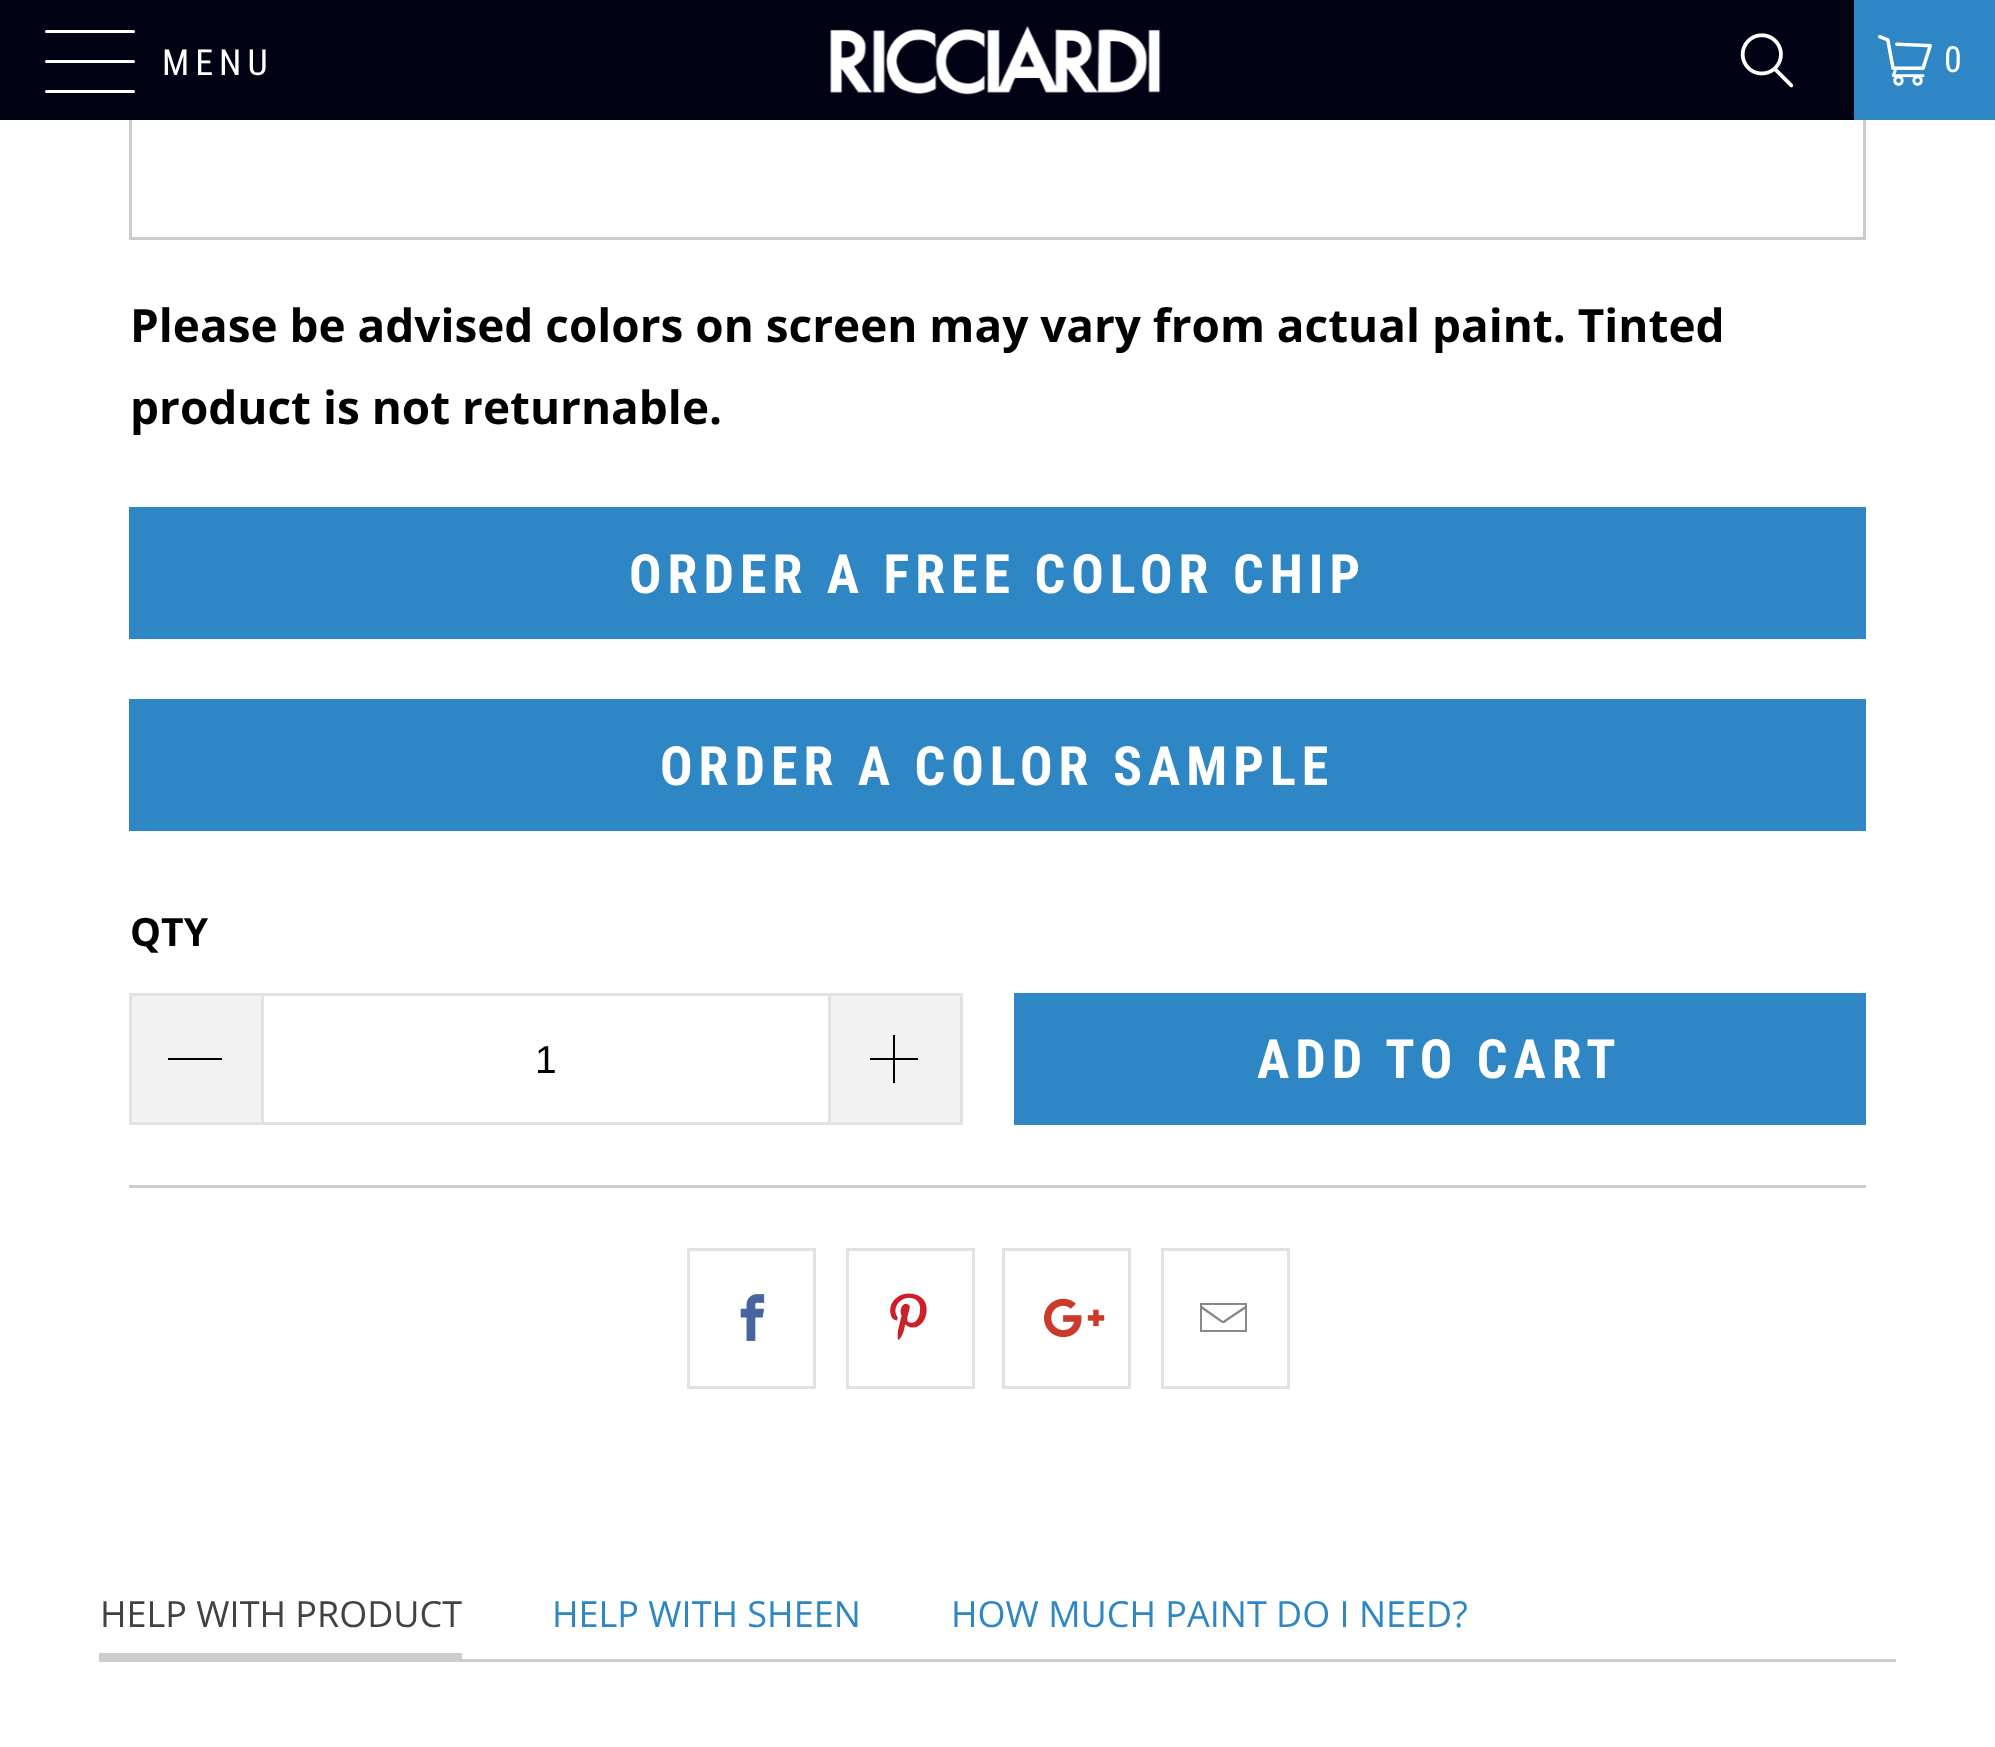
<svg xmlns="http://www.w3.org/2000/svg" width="1995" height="1747">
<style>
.a{font:36px Roboto Condensed;letter-spacing:6px;fill:#fff}
.b{font:36px Roboto Condensed;letter-spacing:3px;fill:#fff}
.c{font:bold 45.9px Open Sans;fill:#000}
.d{font:bold 54px Roboto Condensed;letter-spacing:6px;fill:#fff}
.e{font:bold 39px Open Sans;fill:#000}
.f{font:39px Liberation Sans;fill:#000}
.g{font:36px Open Sans;fill:#424242}
.h{font:36px Open Sans;fill:#2f86c4}
</style>
<rect width="100%" height="100%" fill="#fff"/>
<path fill="none" stroke="#ccc" stroke-width="3" d="M130.5 109.5h1734v129H130.5z"/>
<path fill="#010315" d="M0 0h1854v120H0z"/>
<rect fill="#fff" x="45" y="30" width="90" height="3" rx="1.5"/>
<rect fill="#fff" x="45" y="60" width="90" height="3" rx="1.5"/>
<rect fill="#fff" x="45" y="90" width="90" height="3" rx="1.5"/>
<image href="1.png" x="830" y="26" width="331" height="69"/>
<image href="2.png" x="1740" y="33" width="54" height="55"/>
<path fill="#2f86c4" d="M1854 0h141v120H1854z"/>
<image href="3.png" x="1878" y="35" width="54" height="51"/>
<path fill="#2f86c4" d="M129 507h1737v132H129z"/>
<path fill="#2f86c4" d="M129 699h1737v132H129z"/>
<path fill="#f2f2f2" d="M132 996h129v126H132z"/>
<path fill="#e2e2e2" d="M129 993h132v3H129z"/>
<path fill="#e2e2e2" d="M129 1122h132v3H129z"/>
<path fill="#e2e2e2" d="M129 993h3v132H129z"/>
<path fill="#000" d="M168 1058h54v2H168z"/>
<path fill="none" stroke="#e2e2e2" stroke-width="3" d="M262.5 994.5h567v129H262.5z"/>
<path fill="#f2f2f2" d="M831 996h129v126H831z"/>
<path fill="#e2e2e2" d="M831 993h132v3H831z"/>
<path fill="#e2e2e2" d="M960 993h3v132H960z"/>
<path fill="#e2e2e2" d="M831 1122h132v3H831z"/>
<path fill="#000" d="M918 1058h-23v-23h-2v23h-23v2h23v23h2v-23h23z"/>
<path fill="#2f86c4" d="M1014 993h852v132H1014z"/>
<path fill="#ccc" d="M129 1185h1737v3H129z"/>
<path fill="none" stroke="#e2e2e2" stroke-width="3" d="M688.5 1249.5h126v138H688.5z"/>
<image href="4.png" x="740" y="1294" width="25" height="47"/>
<path fill="none" stroke="#e2e2e2" stroke-width="3" d="M847.5 1249.5h126v138H847.5z"/>
<image href="5.png" x="890" y="1293" width="37" height="48"/>
<path fill="none" stroke="#e2e2e2" stroke-width="3" d="M1003.5 1249.5h126v138H1003.5z"/>
<image href="6.png" x="1044" y="1298" width="61" height="40"/>
<path fill="none" stroke="#e2e2e2" stroke-width="3" d="M1162.5 1249.5h126v138H1162.5z"/>
<path fill="#888" d="M1200 1303v29h47v-29zm45 2v1l-22 15l-21-15v-1zm-43 25v-21l17 12c5 3 4 3 8 0l18-12v21z"/>
<path fill="#ccc" d="M462 1659h1434v3H462z"/>
<path fill="#ccc" d="M99 1653h363v9H99z"/>
<text class="a" x="162" y="75">MENU</text>
<text class="b" x="1944" y="72">0</text>
<text class="c" x="130" y="342">Please be advised colors on screen may vary from actual paint. Tinted</text>
<text class="c" x="130" y="424">product is not returnable.</text>
<text class="d" x="629" y="593">ORDER A FREE COLOR CHIP</text>
<text class="d" x="660" y="785">ORDER A COLOR SAMPLE</text>
<text class="e" x="130" y="946">QTY</text>
<text class="f" x="535" y="1073">1</text>
<text class="d" x="1257" y="1078">ADD TO CART</text>
<text class="g" x="100" y="1627">HELP WITH PRODUCT</text>
<text class="h" x="552" y="1627">HELP WITH SHEEN</text>
<text class="h" x="951" y="1627">HOW MUCH PAINT DO I NEED?</text>
</svg>
